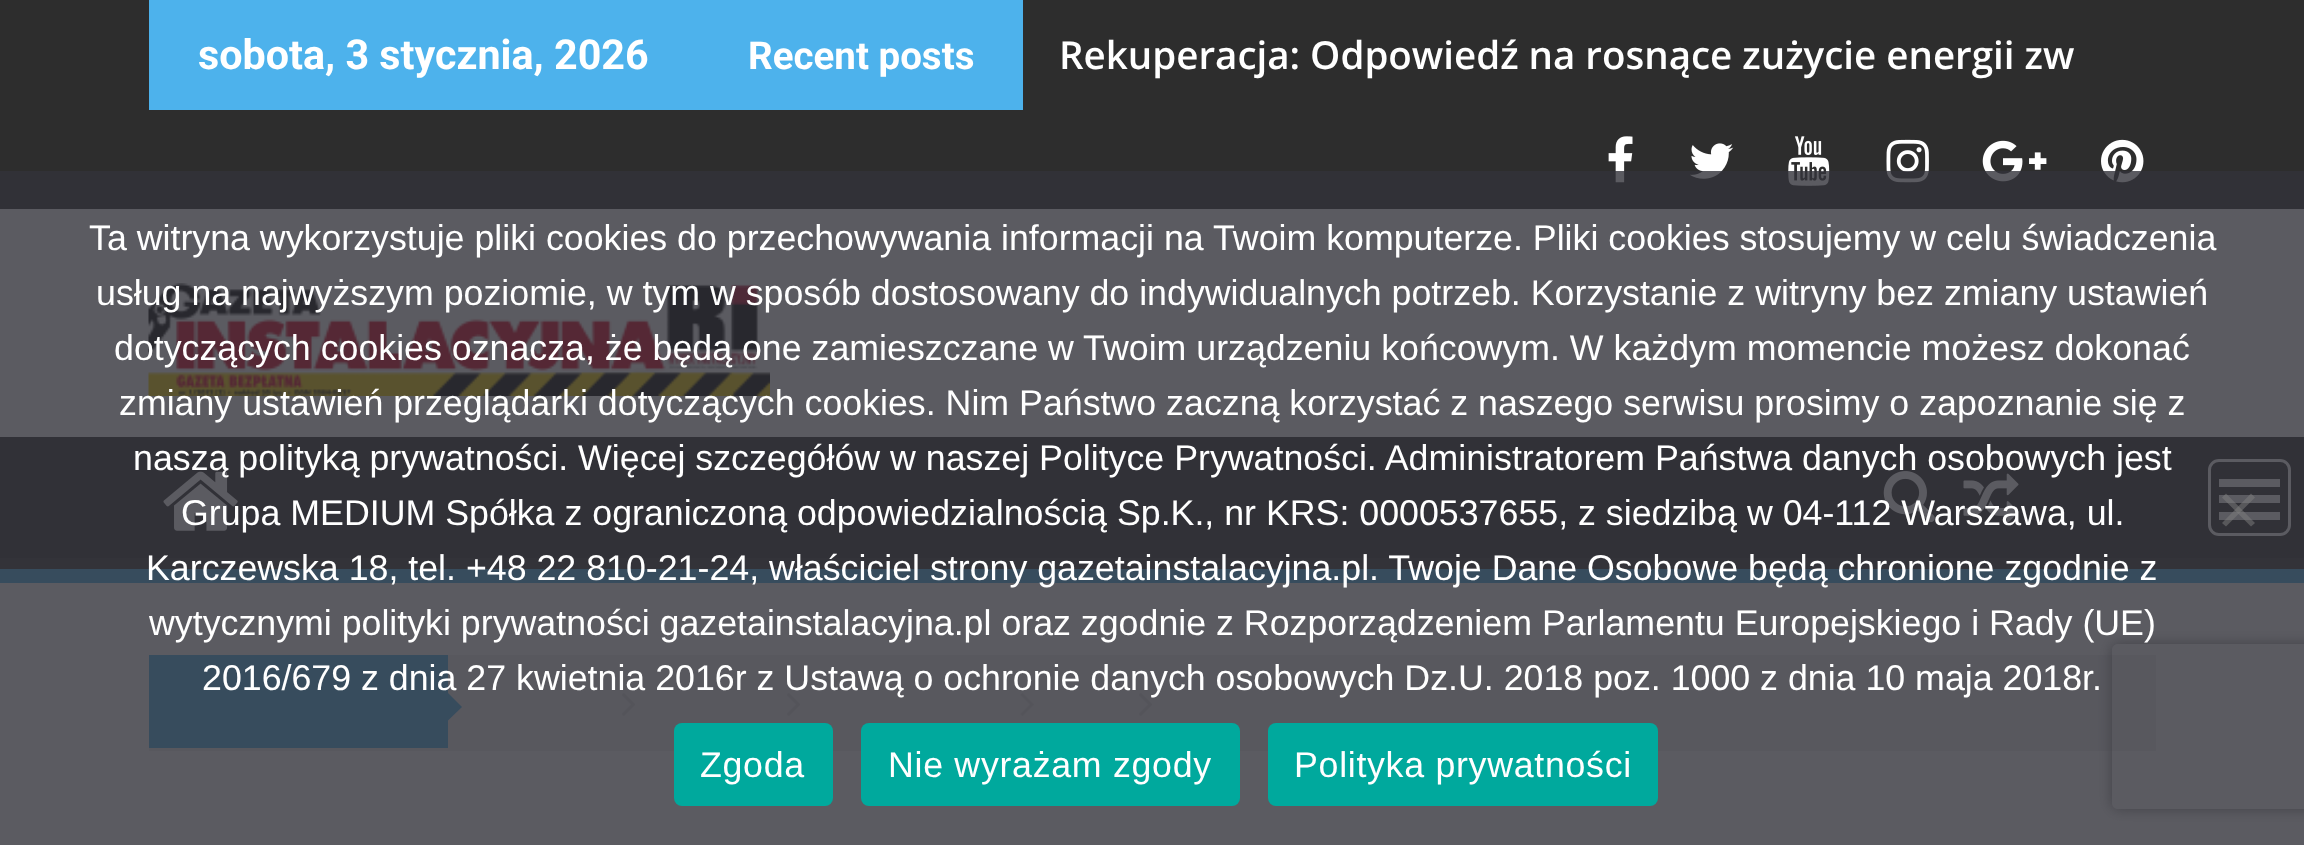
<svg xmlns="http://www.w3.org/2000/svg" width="2304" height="845">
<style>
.a{font:bold 41.25px Roboto;fill:#fff}
.b{font:bold 38.5px Roboto;fill:#fff}
.c{font:600 38.5px Open Sans;fill:#fff}
.d{font:35.75px Liberation Sans;fill:#fff}
.e{font:35.75px Liberation Sans;letter-spacing:0.7px;fill:#fff}
</style>
<defs>
<clipPath id="clip1"><path d="M0 437h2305v132H0z"/></clipPath>
<clipPath id="clip2"><path d="M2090 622h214v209h-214zm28 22h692c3.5 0 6 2.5 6 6v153c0 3.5-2.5 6-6 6h-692c-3.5 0-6-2.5-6-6v-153c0-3.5 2.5-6 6-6z" clip-rule="evenodd"/></clipPath>
</defs>
<rect width="100%" height="100%" fill="#fff"/>
<path fill="#2d2d2d" d="M0 0h2304v209H0z"/>
<path fill="#4db2ec" d="M149 0h874v110H149z"/>
<image href="1.png" x="1608" y="136" width="25" height="47"/>
<image href="2.png" x="1689" y="143" width="45" height="36"/>
<image href="3.png" x="1788" y="136" width="42" height="50"/>
<image href="4.png" x="1886" y="139" width="43" height="44"/>
<image href="5.png" x="1982" y="140" width="65" height="42"/>
<image href="6.png" x="2101" y="139" width="43" height="44"/>
<image href="7.png" x="148" y="283" width="622" height="113"/>
<path fill="#2d2d2d" d="M0 437h2304v121H0z"/>
<g clip-path="url(#clip1)">
<path fill="#393939" fill-rule="evenodd" d="M-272 165h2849v677h-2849zm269 256h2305c1 0 2 1 2 3v132c0 1-1 2-2 2h-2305c-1 0-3-1-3-2v-132c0-2 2-3 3-3z"/>
</g>
<path fill="#4db2ec" d="M0 569h2304v14H0z"/>
<image href="8.png" x="163" y="471" width="75" height="60"/>
<image href="9.png" x="1883" y="471" width="52" height="52"/>
<image href="10.png" x="1963" y="473" width="56" height="50"/>
<rect fill="none" stroke="#fff" stroke-width="3" x="2209.5" y="460.5" width="80" height="74" rx="9.5"/>
<path fill="#fff" d="M2219 512h61v8H2219z"/>
<path fill="#fff" d="M2219 495h61v8H2219z"/>
<path fill="#fff" d="M2219 479h61v8H2219z"/>
<path fill="#eeeeef" d="M149 655h2007v96H149z"/>
<image href="11.png" x="622" y="693" width="13" height="23"/>
<image href="11.png" x="787" y="693" width="13" height="23"/>
<image href="12.png" x="1020" y="693" width="14" height="23"/>
<image href="11.png" x="1139" y="693" width="13" height="23"/>
<path fill="#4db2ec" d="M149 655h299v93H149z"/>
<path fill="#4db2ec" d="M448 720.5v-27.5l14 14z"/>
<g clip-path="url(#clip2)">
<rect fill="#808080" filter="blur(7px)" x="2112" y="644" width="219" height="165" rx="6"/>
</g>
<path fill="#32323acc" d="M0 171h2304v674H0z"/>
<path fill="#80808080" d="M2251 493.5l4 4l-29 29l-4-3.5z"/>
<path fill="#80808080" d="M2222 497.5l4-4l29 29.5l-4 3.5z"/>
<rect fill="#00a99d" x="674" y="723" width="159" height="83" rx="8"/>
<rect fill="#00a99d" x="861" y="723" width="379" height="83" rx="8"/>
<rect fill="#00a99d" x="1268" y="723" width="390" height="83" rx="8"/>
<text class="a" x="198" y="69">sobota, 3 stycznia, 2026</text>
<text class="b" x="748" y="69">Recent posts</text>
<text class="c" x="1059" y="69">Rekuperacja: Odpowiedź na rosnące zużycie energii zw</text>
<text class="d" x="89" y="250">Ta witryna wykorzystuje pliki cookies do przechowywania informacji na Twoim komputerze. Pliki cookies stosujemy w celu świadczenia</text>
<text class="d" x="96" y="305">usług na najwyższym poziomie, w tym w sposób dostosowany do indywidualnych potrzeb. Korzystanie z witryny bez zmiany ustawień</text>
<text class="d" x="114" y="360">dotyczących cookies oznacza, że będą one zamieszczane w Twoim urządzeniu końcowym. W każdym momencie możesz dokonać</text>
<text class="d" x="119" y="415">zmiany ustawień przeglądarki dotyczących cookies. Nim Państwo zaczną korzystać z naszego serwisu prosimy o zapoznanie się z</text>
<text class="d" x="133" y="470">naszą polityką prywatności. Więcej szczegółów w naszej Polityce Prywatności. Administratorem Państwa danych osobowych jest</text>
<text class="d" x="181" y="525">Grupa MEDIUM Spółka z ograniczoną odpowiedzialnością Sp.K., nr KRS: 0000537655, z siedzibą w 04-112 Warszawa, ul.</text>
<text class="d" x="146" y="580">Karczewska 18, tel. +48 22 810-21-24, właściciel strony gazetainstalacyjna.pl. Twoje Dane Osobowe będą chronione zgodnie z</text>
<text class="d" x="149" y="635">wytycznymi polityki prywatności gazetainstalacyjna.pl oraz zgodnie z Rozporządzeniem Parlamentu Europejskiego i Rady (UE)</text>
<text class="d" x="202" y="690">2016/679 z dnia 27 kwietnia 2016r z Ustawą o ochronie danych osobowych Dz.U. 2018 poz. 1000 z dnia 10 maja 2018r.</text>
<text class="e" x="700" y="777">Zgoda</text>
<text class="e" x="888" y="777">Nie wyrażam zgody</text>
<text class="e" x="1294" y="777">Polityka prywatności</text>
</svg>
